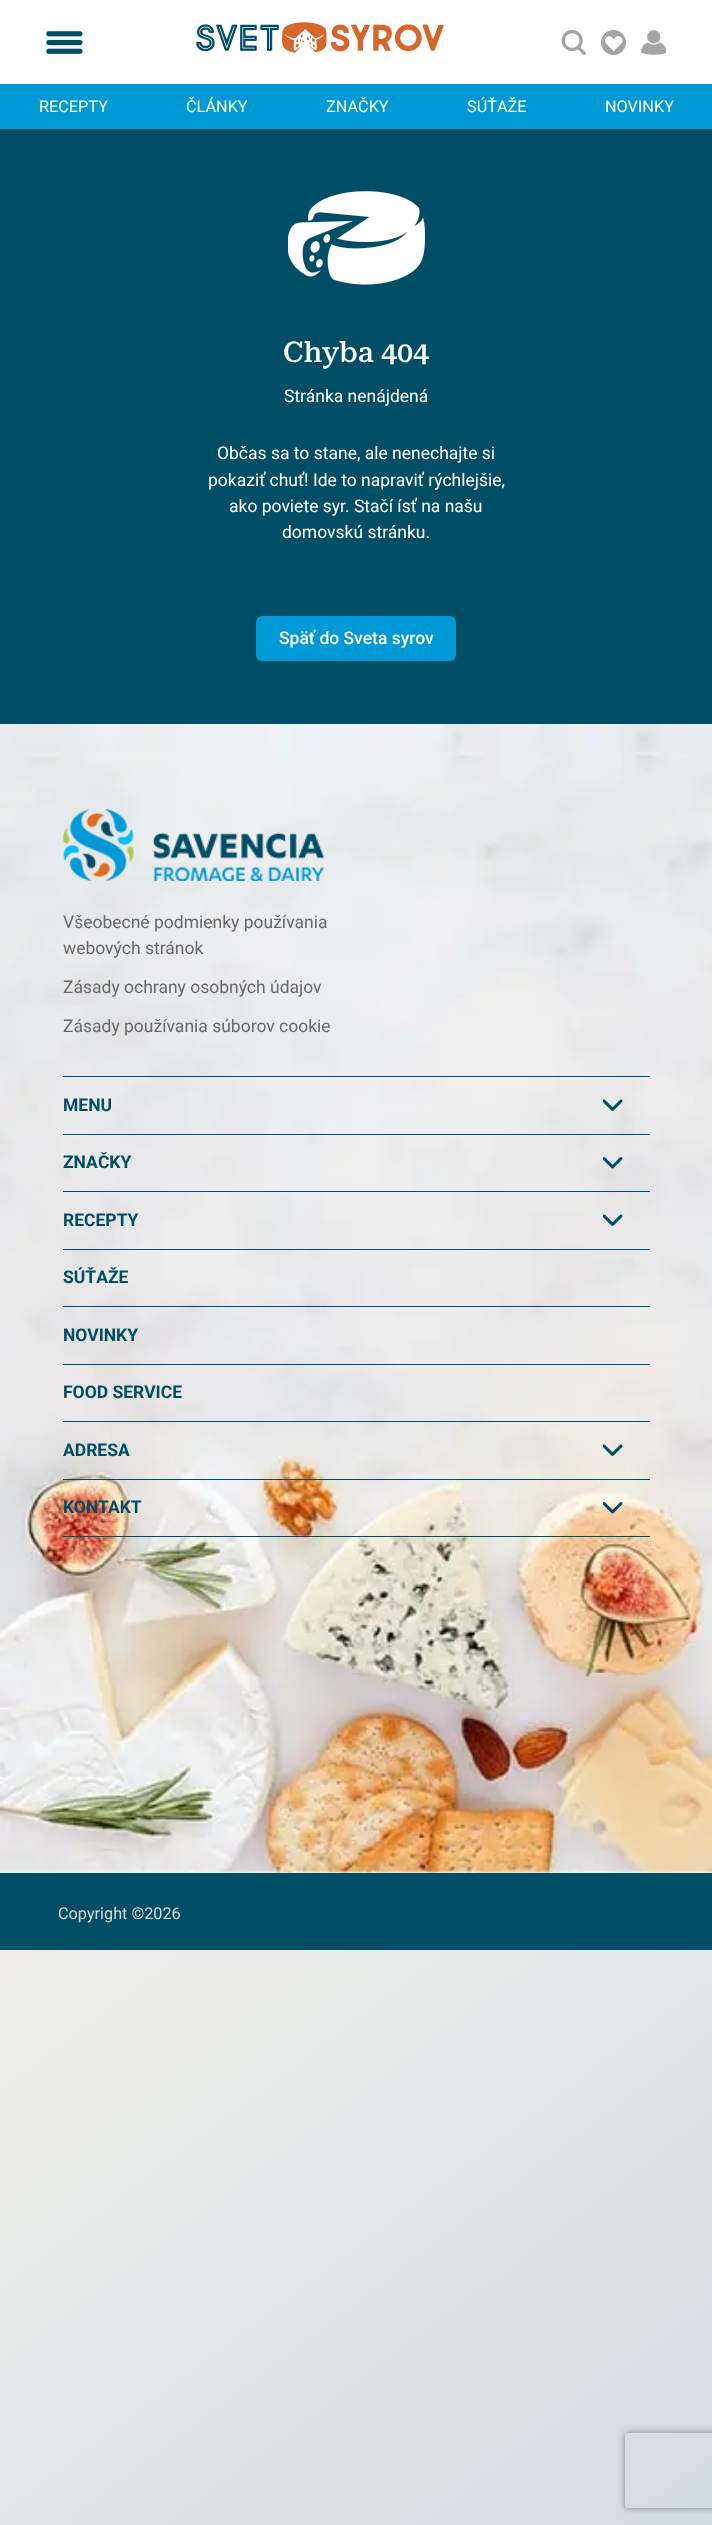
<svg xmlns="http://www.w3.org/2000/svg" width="712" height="2525">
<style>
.a{font:16.25px Roboto;fill:#fff}
.b{font:500 28.75px Roboto Serif;fill:#fff}
.c{font:17.5px Roboto;fill:#fff}
.d{font:500 17.5px Roboto;fill:#fff}
.e{font:17.5px Roboto;fill:#696969}
.f{font:bold 17.5px Roboto;fill:#004e65}
.g{font:16.25px Roboto;fill:#dadada}
</style>
<defs>
<linearGradient id="g1" gradientUnits="userSpaceOnUse" x1="-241" y1="2132" x2="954" y2="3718"><stop offset="0" stop-color="#f0efea"/><stop offset="0.51" stop-color="#ccd8e1"/><stop offset="1" stop-color="#f0efea"/></linearGradient>
<clipPath id="clip1"><path d="M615 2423h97v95h-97zm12.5 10h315c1.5 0 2.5 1 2.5 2.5v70c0 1.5-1 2.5-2.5 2.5h-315c-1.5 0-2.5-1-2.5-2.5v-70c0-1.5 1-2.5 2.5-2.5z" clip-rule="evenodd"/></clipPath>
</defs>
<rect width="100%" height="100%" fill="#fff"/>
<path fill="url(#g1)" d="M0 1950h712v575H0z"/>
<image href="1.png" x="46" y="31" width="37" height="23"/>
<image href="2.png" x="196" y="22" width="248" height="31"/>
<image href="3.png" x="561" y="30" width="25" height="25"/>
<circle fill="#a4a4a4" cx="613.5" cy="42.5" r="12.5"/>
<image href="4.png" x="605" y="36" width="18" height="16"/>
<image href="5.png" x="641" y="30" width="25" height="25"/>
<path fill="#0099d8" d="M0 84h712v45H0z"/>
<path fill="#004e65" d="M0 129h712v595H0z"/>
<image href="6.png" x="288" y="191" width="137" height="94"/>
<rect fill="#0099d8" x="256" y="616" width="200" height="45" rx="6"/>
<image href="7.png" x="0" y="724" width="712" height="1149"/>
<image href="8.png" x="0" y="752" width="712" height="1121"/>
<image href="9.png" x="63" y="809" width="261" height="72"/>
<path fill="#004e65" d="M63 1076h587v1H63z"/>
<path fill="#004e65" d="M63 1134h587v1H63z"/>
<image href="10.png" x="603" y="1099" width="20" height="12"/>
<path fill="#004e65" d="M63 1191h587v1H63z"/>
<image href="11.png" x="603" y="1157" width="20" height="12"/>
<path fill="#004e65" d="M63 1249h587v1H63z"/>
<image href="12.png" x="603" y="1214" width="20" height="12"/>
<path fill="#004e65" d="M63 1306h587v1H63z"/>
<path fill="#004e65" d="M63 1364h587v1H63z"/>
<path fill="#004e65" d="M63 1421h587v1H63z"/>
<path fill="#004e65" d="M63 1479h587v1H63z"/>
<image href="13.png" x="603" y="1444" width="20" height="12"/>
<path fill="#004e65" d="M63 1536h587v1H63z"/>
<image href="14.png" x="603" y="1502" width="20" height="12"/>
<path fill="#004e65" d="M0 1873h712v77H0z"/>
<g clip-path="url(#clip1)">
<rect fill="#808080" filter="blur(3px)" x="625" y="2433" width="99" height="75" rx="2.5"/>
</g>
<text class="a" x="39" y="112">RECEPTY</text>
<text class="a" x="186" y="112">ČLÁNKY</text>
<text class="a" x="326" y="112">ZNAČKY</text>
<text class="a" x="467" y="112">SÚŤAŽE</text>
<text class="a" x="605" y="112">NOVINKY</text>
<text class="b" x="283" y="362">Chyba 404</text>
<text class="c" x="284" y="402">Stránka nenájdená</text>
<text class="c" x="217" y="459">Občas sa to stane, ale nenechajte si</text>
<text class="c" x="208" y="486">pokaziť chuť! Ide to napraviť rýchlejšie,</text>
<text class="c" x="229" y="512">ako poviete syr. Stačí ísť na našu</text>
<text class="c" x="282" y="538">domovskú stránku.</text>
<text class="d" x="279" y="644">Späť do Sveta syrov</text>
<text class="e" x="63" y="928">Všeobecné podmienky používania</text>
<text class="e" x="63" y="954">webových stránok</text>
<text class="e" x="63" y="993">Zásady ochrany osobných údajov</text>
<text class="e" x="63" y="1032">Zásady používania súborov cookie</text>
<text class="f" x="63" y="1111">MENU</text>
<text class="f" x="63" y="1168">ZNAČKY</text>
<text class="f" x="63" y="1226">RECEPTY</text>
<text class="f" x="63" y="1283">SÚŤAŽE</text>
<text class="f" x="63" y="1341">NOVINKY</text>
<text class="f" x="63" y="1398">FOOD SERVICE</text>
<text class="f" x="63" y="1456">ADRESA</text>
<text class="f" x="63" y="1513">KONTAKT</text>
<text class="g" x="58" y="1919">Copyright ©2026</text>
</svg>
